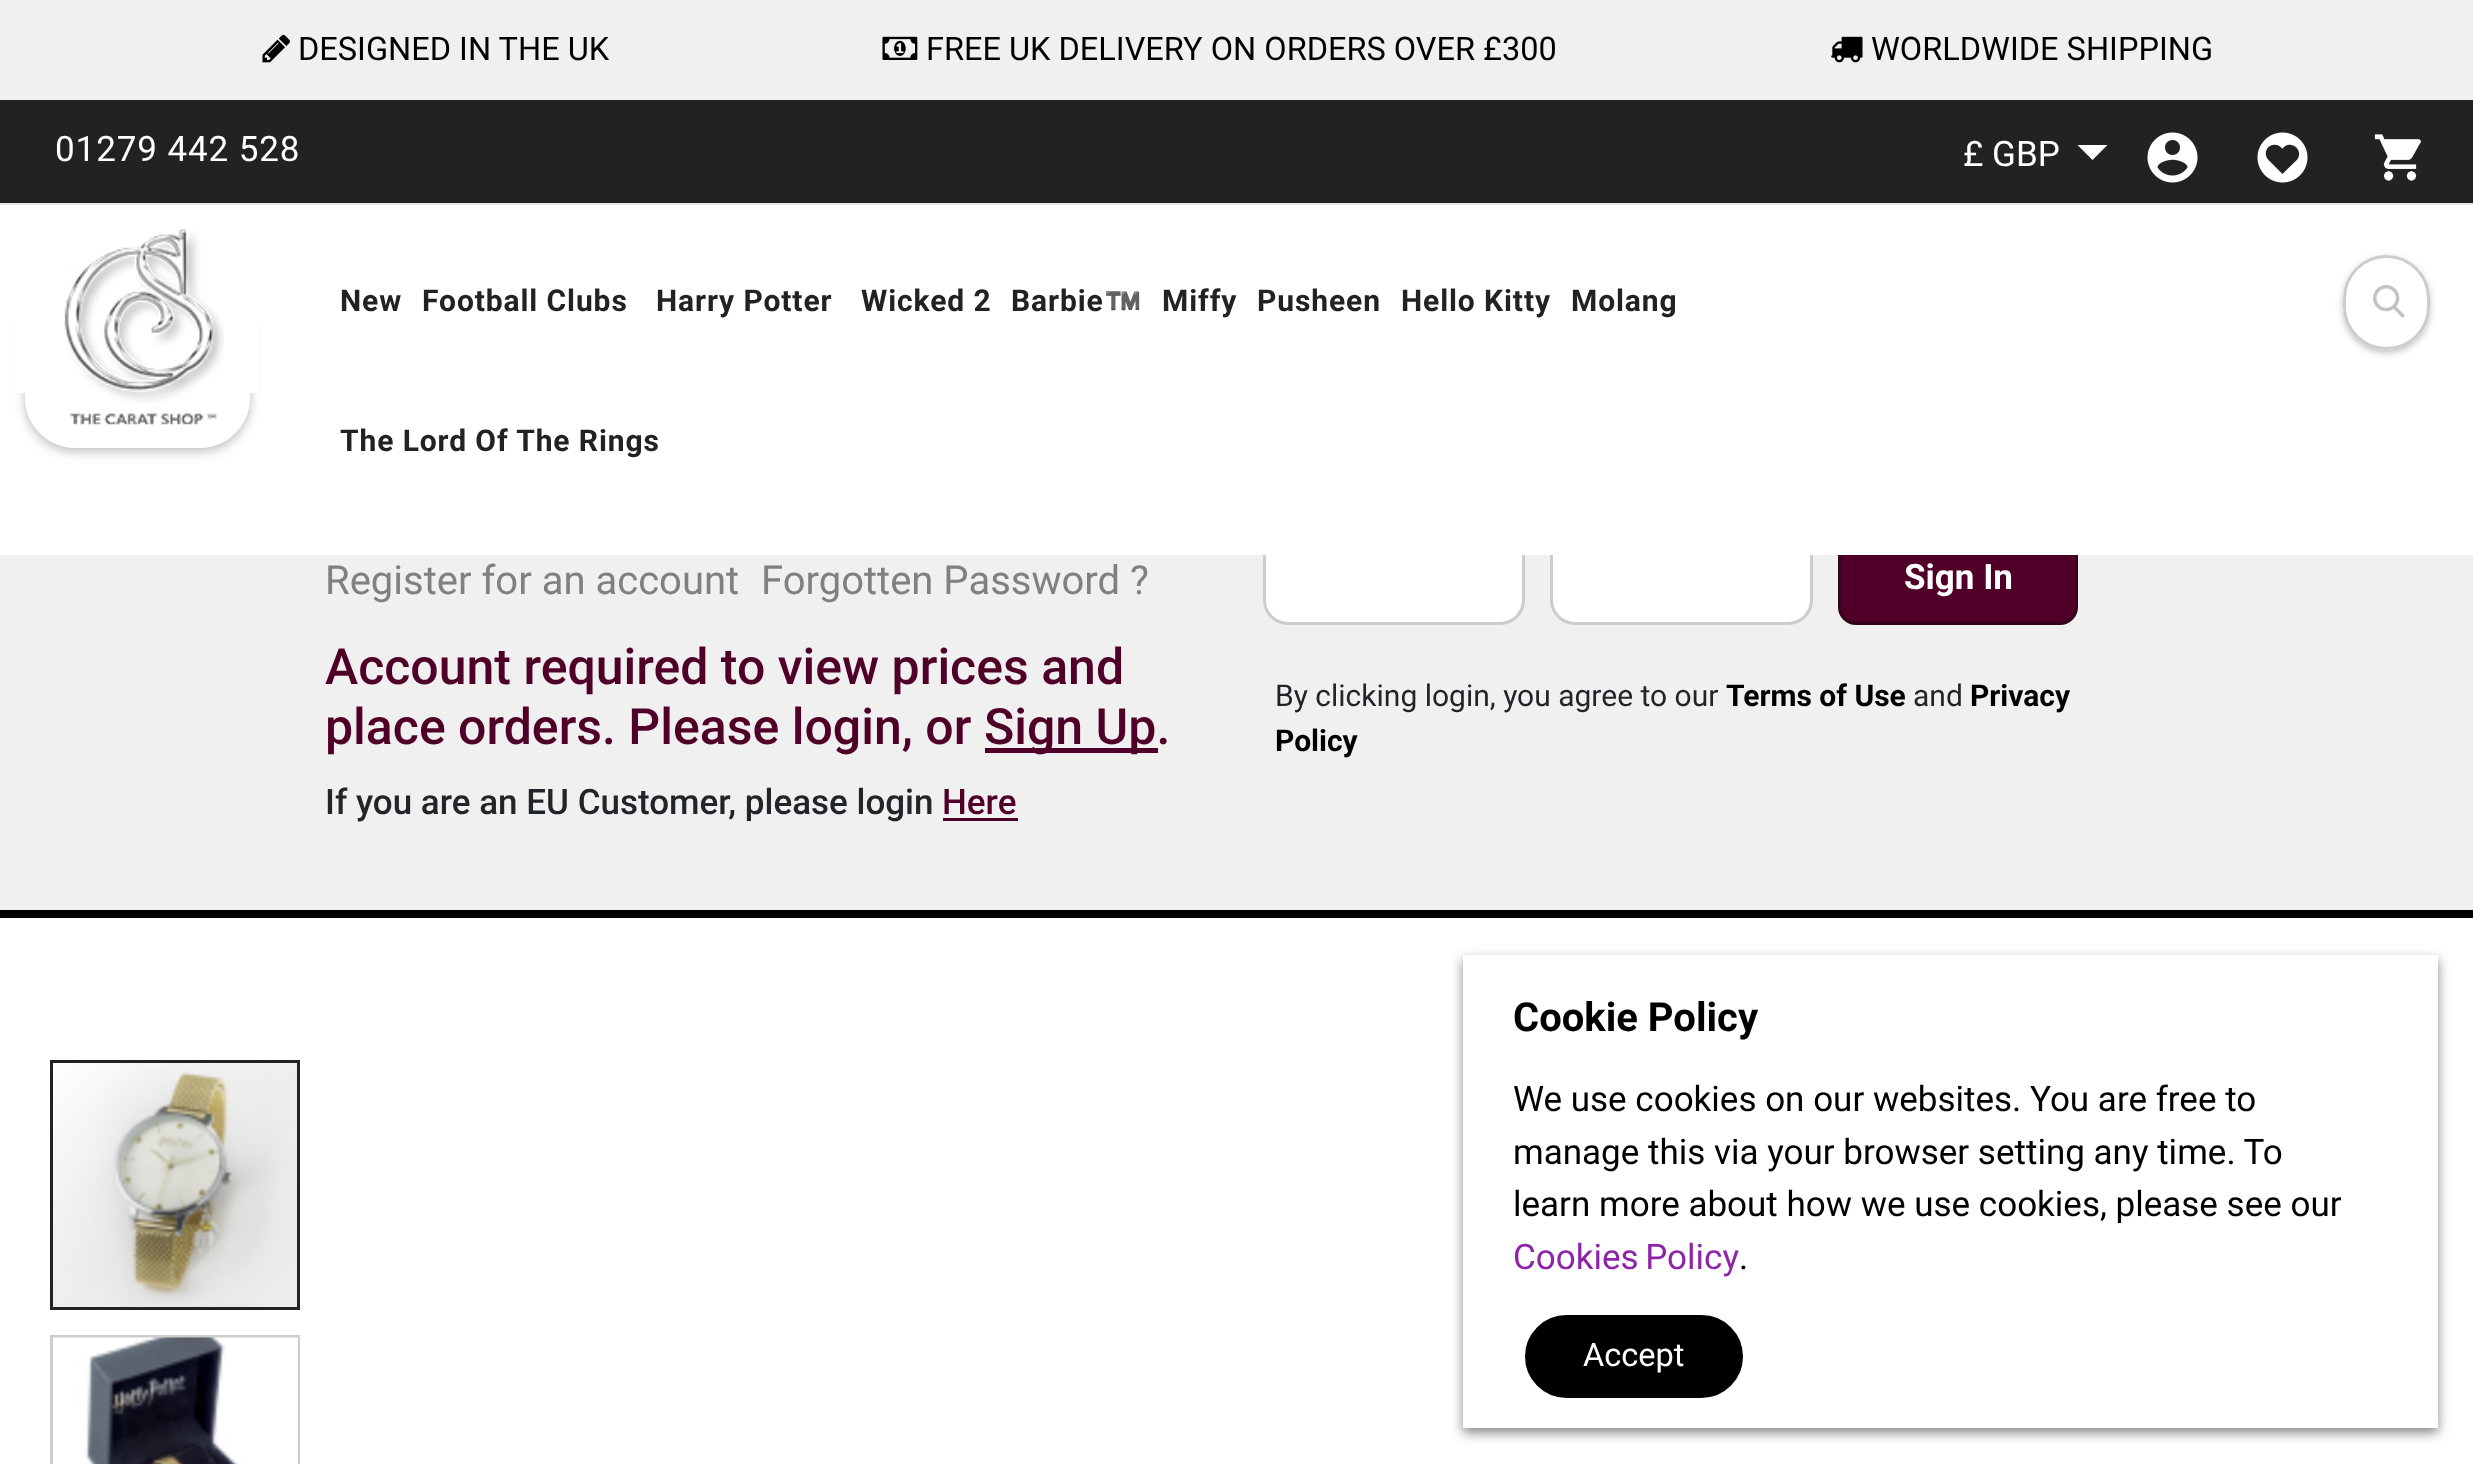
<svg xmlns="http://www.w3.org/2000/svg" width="2473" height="1464">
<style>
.a{font:32.5px Roboto;fill:#000}
.b{font:35px Roboto;letter-spacing:0.9px;fill:#fff}
.c{font:35px Roboto;fill:#fff}
.d{font:bold 30px Roboto;letter-spacing:0.9px;fill:#222}
.e{font:bold 30px Noto Color Emoji;letter-spacing:0.9px;fill:#222}
.f{font:40px Roboto;fill:#817f80}
.g{font:500 50px Roboto;fill:#500028}
.h{font:500 35px Roboto;fill:#212529}
.i{font:500 35px Roboto;fill:#500028}
.j{font:bold 35px Roboto;fill:#fff}
.k{font:30px Roboto;fill:#212529}
.l{font:bold 30px Roboto;fill:#000}
.m{font:bold 40px Roboto;fill:#000}
.n{font:35px Roboto;fill:#000}
.o{font:35px Roboto;fill:#8e24aa}
.p{font:32.5px Roboto;fill:#fff}
</style>
<defs>
<clipPath id="clip1"><path d="M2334 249h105v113h-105zm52.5 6c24 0 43.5 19.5 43.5 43.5v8c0 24-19.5 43.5-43.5 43.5c-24 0-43.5-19.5-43.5-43.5v-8c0-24 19.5-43.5 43.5-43.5z" clip-rule="evenodd"/></clipPath>
<clipPath id="clip2"><path d="M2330 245h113v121h-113zm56.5 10c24 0 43.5 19.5 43.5 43.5v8c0 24-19.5 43.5-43.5 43.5c-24 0-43.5-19.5-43.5-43.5v-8c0-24 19.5-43.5 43.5-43.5z" clip-rule="evenodd"/></clipPath>
<linearGradient id="g1" gradientUnits="userSpaceOnUse" x1="53" y1="1063" x2="298" y2="1308"><stop offset="0" stop-color="#fff" stop-opacity="0.25"/><stop offset="1" stop-color="#404040" stop-opacity="0.1"/></linearGradient>
</defs>
<rect width="100%" height="100%" fill="#fff"/>
<path fill="#f0f0f0" d="M0 0h2473v100H0z"/>
<image href="1.png" x="262" y="34" width="28" height="29"/>
<image href="2.png" x="882" y="36" width="36" height="24"/>
<image href="3.png" x="1831" y="36" width="32" height="27"/>
<path fill="#222" d="M0 100h2473v103H0z"/>
<path fill="#e8e8e8" d="M0 203h2473v2H0z"/>
<path fill="#fff" d="M2077.5 145h30l-15 15z"/>
<image href="4.png" x="2147" y="132" width="51" height="51"/>
<image href="5.png" x="2257" y="132" width="51" height="51"/>
<image href="6.png" x="2374" y="134" width="47" height="47"/>
<rect fill="#0000001f" filter="blur(4px)" x="25" y="275" width="225" height="175" rx="50"/>
<rect fill="#00000024" filter="blur(6px)" x="25" y="278" width="225" height="175" rx="50"/>
<path fill="#fff" d="M25 273h225v125c0 27.5-22.5 50-50 50h-125c-27.5 0-50-22.5-50-50z"/>
<path fill="#fff" d="M16 268h243v125H16z"/>
<image href="7.png" x="64" y="229" width="160" height="196"/>
<path fill="#f0f0f0" d="M0 555h2473v355H0z"/>
<rect fill="#fff" stroke="#ccc" stroke-width="3" x="1264.5" y="531.5" width="259" height="92" rx="23.5"/>
<rect fill="#fff" stroke="#ccc" stroke-width="3" x="1551.5" y="531.5" width="260" height="92" rx="23.5"/>
<rect fill="#500028" stroke="#33051c" stroke-width="3" x="1839.5" y="534.5" width="237" height="89" rx="16.5"/>
<path fill="#fff" d="M1263 530h815v25H1263z"/>
<g clip-path="url(#clip1)">
<rect fill="#0000001f" filter="blur(2.5px)" x="2343" y="258" width="87" height="95" rx="43.5"/>
</g>
<g clip-path="url(#clip2)">
<rect fill="#0000001f" filter="blur(4px)" x="2343" y="258" width="87" height="95" rx="43.5"/>
</g>
<rect fill="none" stroke="#ccc" stroke-width="3" x="2344.5" y="256.5" width="84" height="92" rx="42"/>
<image href="8.png" x="2373" y="285" width="32" height="33"/>
<path fill="#000" d="M0 910h2473v8H0z"/>
<path fill="#500028" d="M985 748h173v5H985z"/>
<path fill="#500028" d="M943 818h75v3H943z"/>
<image href="9.png" x="53" y="1063" width="244" height="244"/>
<path fill="url(#g1)" d="M53 1063h244v244H53z"/>
<path fill="none" stroke="#222" stroke-width="3" d="M51.5 1061.5h247v247H51.5z"/>
<path fill="none" stroke="#ccc" stroke-width="3" d="M51.5 1336.5h247v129H51.5z"/>
<image href="10.png" x="53" y="1337" width="245" height="127"/>
<path fill="#00000078" filter="blur(6px)" d="M1463 960h975v473H1463z"/>
<path fill="#fff" d="M1463 955h975v473H1463z"/>
<rect fill="#000" stroke="#000" stroke-width="3" x="1526.5" y="1316.5" width="215" height="80" rx="40"/>
<text class="a" x="298" y="60">DESIGNED IN THE UK</text>
<text class="a" x="926" y="60">FREE UK DELIVERY ON ORDERS OVER £300</text>
<text class="a" x="1871" y="60">WORLDWIDE SHIPPING</text>
<text class="b" x="55" y="161">01279 442 528</text>
<text class="c" x="1963" y="166">£ GBP</text>
<text class="d" x="340" y="311">New</text>
<text class="d" x="422" y="311">Football Clubs</text>
<text class="d" x="656" y="311">Harry Potter</text>
<text class="d" x="861" y="311">Wicked 2</text>
<text class="d" x="1011" y="311">Barbie</text>
<text class="e" x="1104" y="311">™️</text>
<text class="d" x="1162" y="311">Miffy</text>
<text class="d" x="1257" y="311">Pusheen</text>
<text class="d" x="1401" y="311">Hello Kitty</text>
<text class="d" x="1571" y="311">Molang</text>
<text class="d" x="340" y="451">The Lord Of The Rings</text>
<text class="f" x="325" y="594">Register for an account</text>
<text class="f" x="761" y="594">Forgotten Password ?</text>
<text class="g" x="325" y="684">Account required to view prices and</text>
<text class="g" x="325" y="744">place orders. Please login, or</text>
<text class="g" x="984" y="744">Sign Up.</text>
<text class="h" x="325" y="814">If you are an EU Customer, please login</text>
<text class="i" x="942" y="814">Here</text>
<text class="j" x="1904" y="589">Sign In</text>
<text class="k" x="1275" y="706">By clicking login, you agree to our</text>
<text class="l" x="1726" y="706">Terms of Use</text>
<text class="k" x="1913" y="706">and</text>
<text class="l" x="1970" y="706">Privacy</text>
<text class="l" x="1275" y="751">Policy</text>
<text class="m" x="1513" y="1031">Cookie Policy</text>
<text class="n" x="1513" y="1111">We use cookies on our websites. You are free to</text>
<text class="n" x="1513" y="1164">manage this via your browser setting any time. To</text>
<text class="n" x="1513" y="1216">learn more about how we use cookies, please see our</text>
<text class="o" x="1513" y="1269" word-spacing="-2">Cookies Policy</text>
<text class="n" x="1739" y="1269">.</text>
<text class="p" x="1583" y="1366">Accept</text>
</svg>
